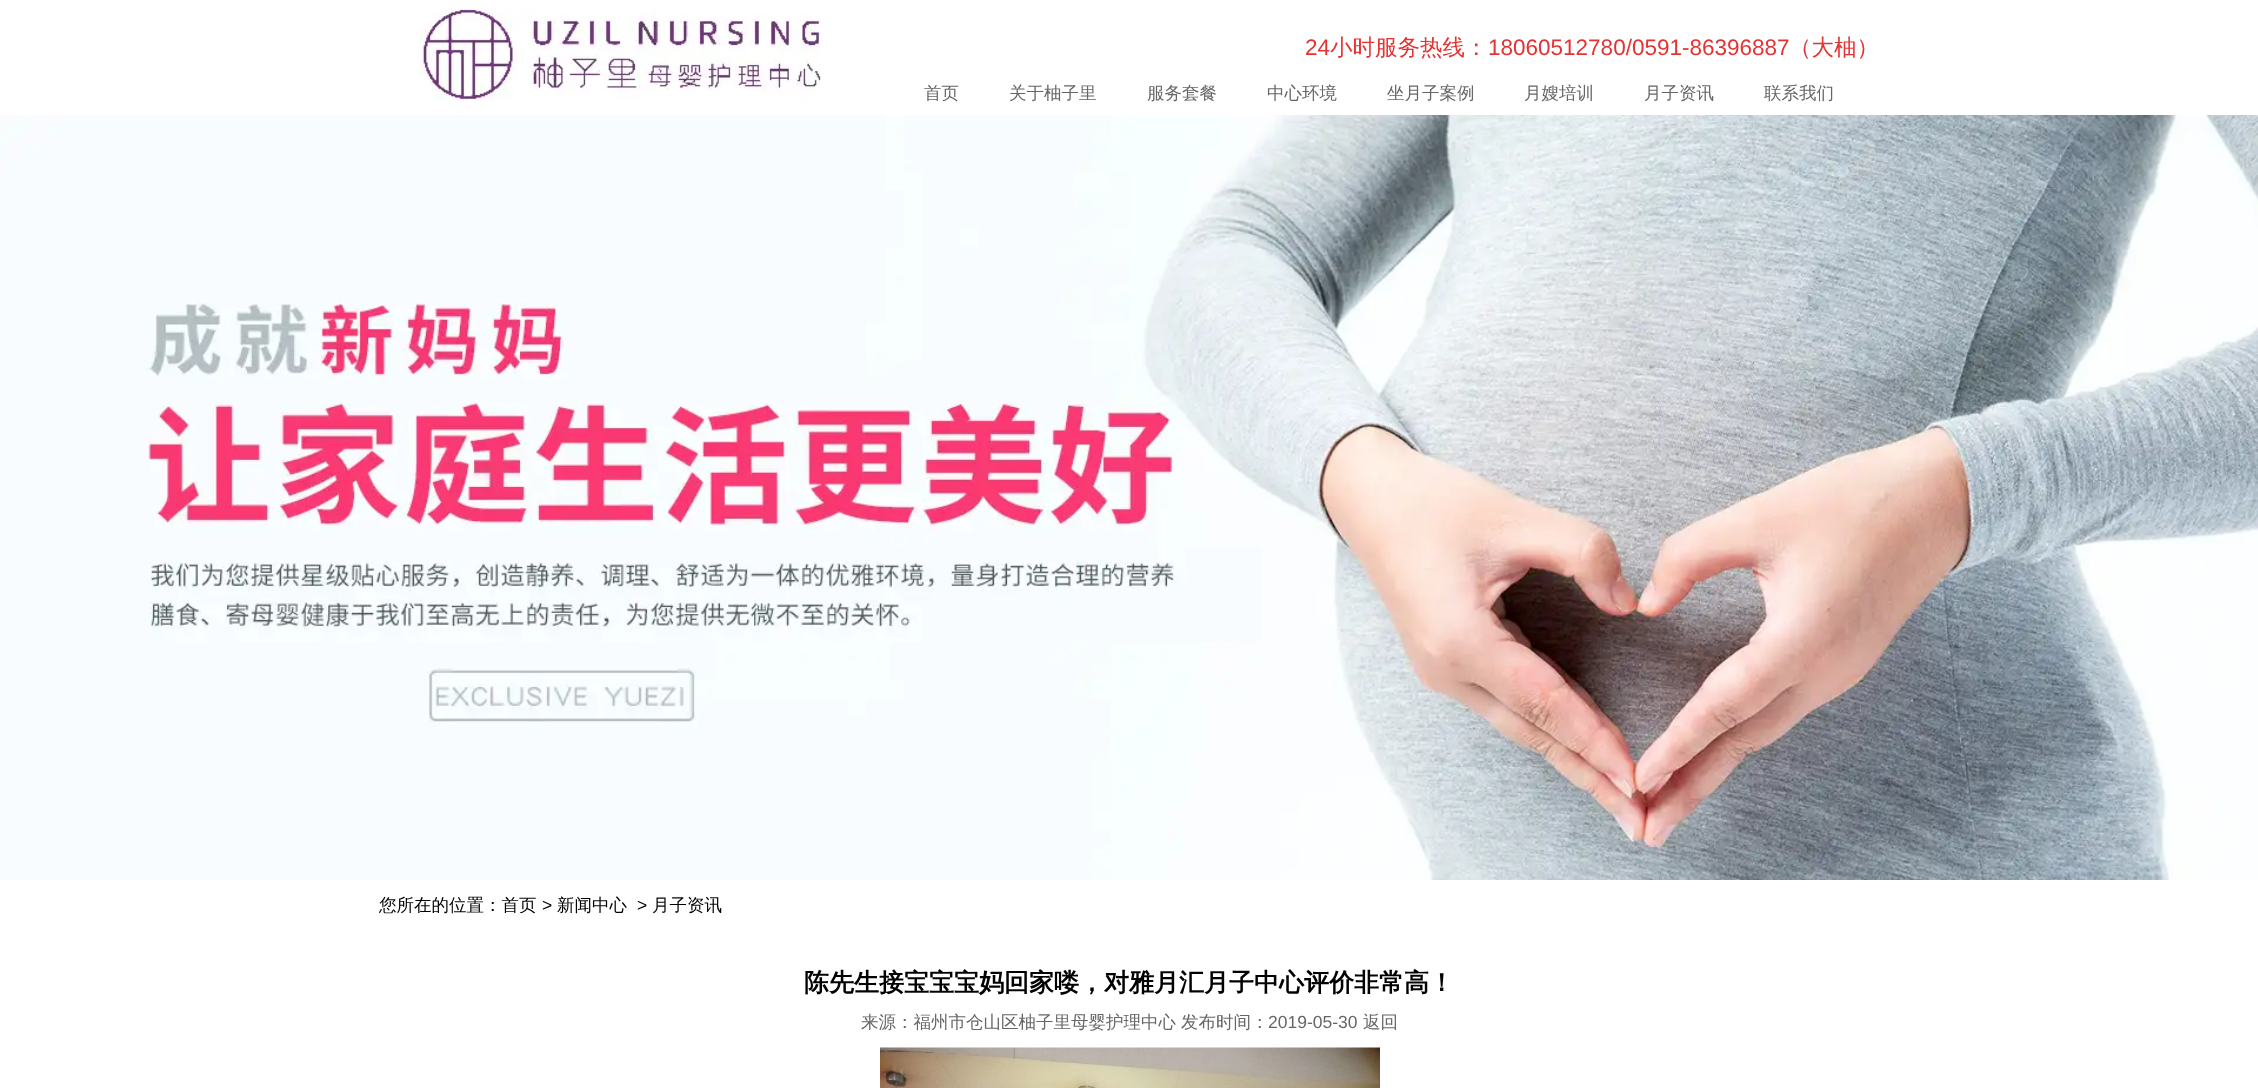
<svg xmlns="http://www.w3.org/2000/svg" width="2258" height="1088">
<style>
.a{font:22.5px Liberation Sans;fill:#e53333}
.b{font:500 22.5px WenQuanYi Zen Hei;fill:#e53333}
.c{font:500 17.5px WenQuanYi Zen Hei;fill:#666}
.d{font:500 17.5px WenQuanYi Zen Hei;fill:#000}
.e{font:17.5px Liberation Sans;fill:#000}
.f{font:bold 25px WenQuanYi Zen Hei;fill:#000}
.g{font:17.5px Liberation Sans;fill:#666}
</style>
<rect width="100%" height="100%" fill="#fff"/>
<image href="1.png" x="418" y="9" width="403" height="92"/>
<image href="2.png" x="0" y="115" width="2258" height="765"/>
<image href="3.png" x="880" y="1047" width="500" height="41"/>
<text class="a" x="1305" y="55">24</text>
<text class="b" x="1330" y="55">小时服务热线：</text>
<text class="a" x="1488" y="55">18060512780/0591-86396887</text>
<text class="b" x="1789" y="55">（大柚）</text>
<text class="c" x="924" y="99">首页</text>
<text class="c" x="1009" y="99">关于柚子里</text>
<text class="c" x="1147" y="99">服务套餐</text>
<text class="c" x="1267" y="99">中心环境</text>
<text class="c" x="1387" y="99">坐月子案例</text>
<text class="c" x="1524" y="99">月嫂培训</text>
<text class="c" x="1644" y="99">月子资讯</text>
<text class="c" x="1764" y="99">联系我们</text>
<text class="d" x="379" y="911">您所在的位置：首页</text>
<text class="e" x="542" y="911">&gt;</text>
<text class="d" x="557" y="911">新闻中心</text>
<text class="e" x="637" y="911">&gt;</text>
<text class="d" x="652" y="911">月子资讯</text>
<text class="f" x="804" y="991">陈先生接宝宝宝妈回家喽，对雅月汇月子中心评价非常高！</text>
<text class="c" x="861" y="1028">来源：福州市仓山区柚子里母婴护理中心</text>
<text class="c" x="1181" y="1028">发布时间：</text>
<text class="g" x="1268" y="1028">2019-05-30</text>
<text class="c" x="1363" y="1028">返回</text>
</svg>
